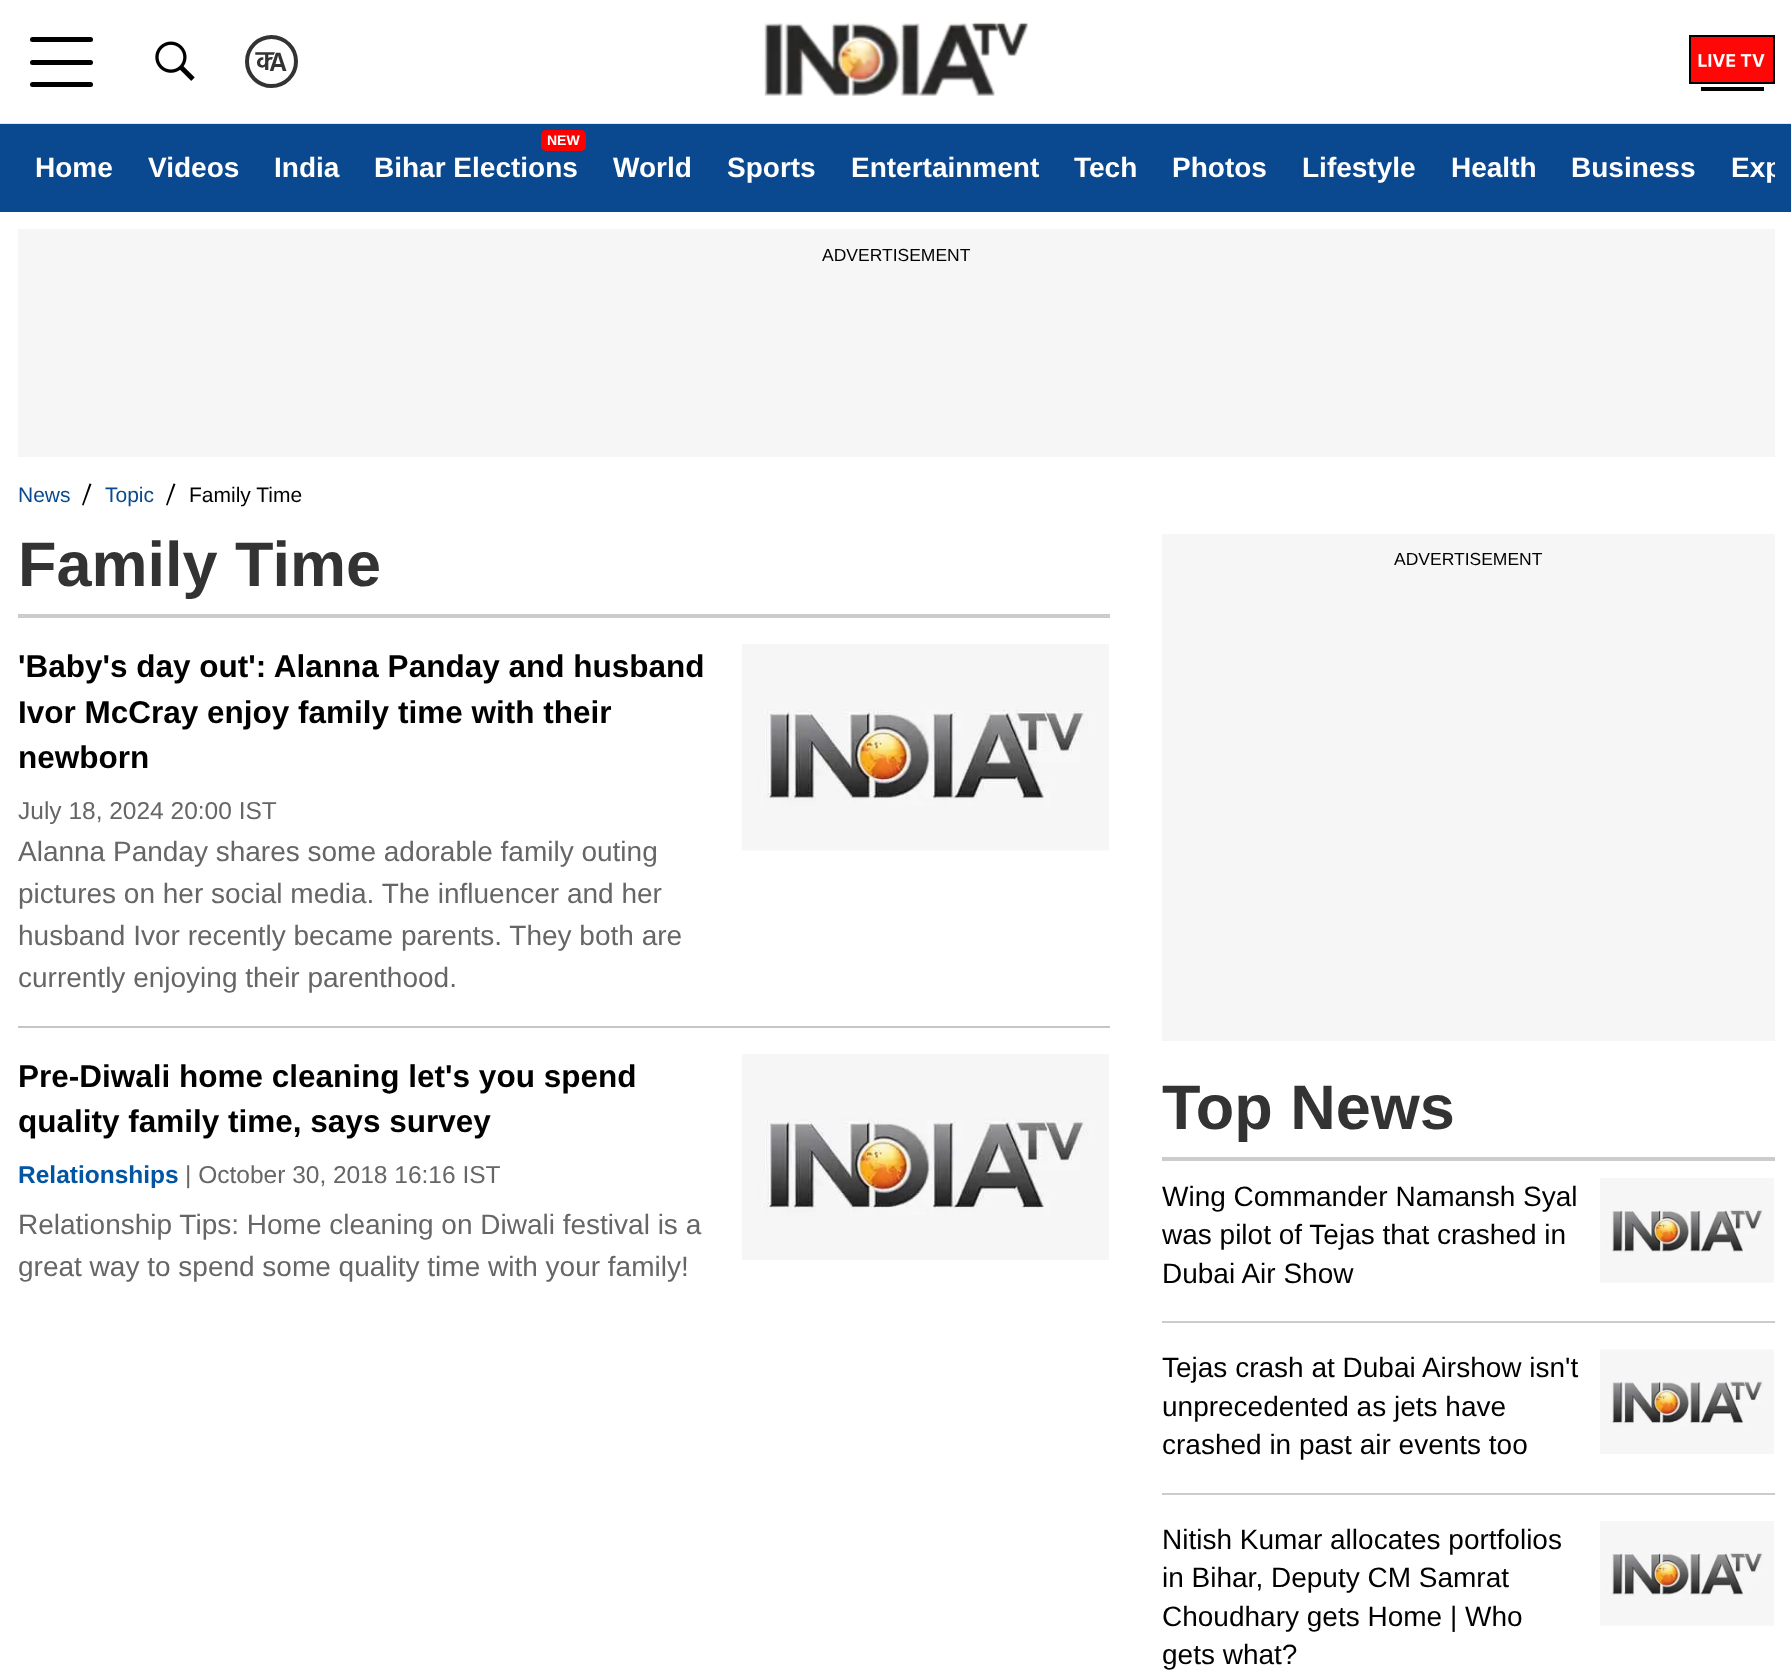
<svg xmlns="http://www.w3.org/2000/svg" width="1791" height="1678">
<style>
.a{font:600 27px Hind;fill:#333}
.b{font:bold 28px Liberation Sans;fill:#fff}
.c{font:bold 14px Liberation Sans;fill:#fff}
.d{font:17.5px Liberation Sans;fill:#000}
.e{font:21px Liberation Sans;fill:#0a4990}
.f{font:21px Liberation Sans;fill:#000}
.g{font:bold 63px Liberation Sans;fill:#333}
.h{font:bold 31.5px Liberation Sans;fill:#000}
.i{font:24.5px Liberation Sans;fill:#666}
.j{font:28px Liberation Sans;fill:#666}
.k{font:bold 24.5px Liberation Sans;fill:#0155a3}
.l{font:28px Liberation Sans;fill:#000}
</style>
<defs>
<clipPath id="clip1"><path d="M275 52l-5 12.5l-1.5 7h-15.5l-.5-21z"/></clipPath>
<clipPath id="clip2"><path d="M18 124h1757v88H18z"/></clipPath>
</defs>
<rect width="100%" height="100%" fill="#fff"/>
<path fill="#e6e6e6" d="M0 123h1791v1H0z"/>
<rect fill="#000" x="30" y="37" width="63" height="5" rx="2.5"/>
<rect fill="#000" x="30" y="60" width="63" height="5" rx="2.5"/>
<rect fill="#000" x="30" y="82" width="63" height="5" rx="2.5"/>
<image href="1.png" x="155" y="41" width="40" height="40"/>
<circle fill="none" stroke="#333" stroke-width="4" cx="271.5" cy="61.5" r="24.5"/>
<image href="2.png" x="764" y="22" width="264" height="74"/>
<image href="3.png" x="1689" y="35" width="86" height="56"/>
<path fill="#0a4990" d="M0 124h1791v88H0z"/>
<rect fill="#f00" x="541" y="130" width="45" height="21" rx="5"/>
<path fill="#f6f6f6" d="M18 229h1757v228H18z"/>
<path fill="#000" d="M89.5 483.5l2 .5l-8 21.5l-1.5-.5z"/>
<path fill="#000" d="M173.5 483.5l2 .5l-8 21.5l-1.5-.5z"/>
<path fill="#ccc" d="M18 614h1092v4H18z"/>
<path fill="#c5c5c5" d="M18 1026h1092v2H18z"/>
<image href="4.png" x="742" y="644" width="367" height="207"/>
<image href="5.png" x="742" y="1054" width="367" height="206"/>
<path fill="#f6f6f6" d="M1162 534h613v507H1162z"/>
<path fill="#ccc" d="M1162 1157h613v4H1162z"/>
<path fill="#ccc" d="M1162 1321h613v2H1162z"/>
<image href="6.png" x="1600" y="1178" width="174" height="105"/>
<path fill="#ccc" d="M1162 1493h613v2H1162z"/>
<image href="7.png" x="1600" y="1349" width="174" height="105"/>
<image href="6.png" x="1600" y="1521" width="174" height="105"/>
<text class="a" x="269" y="71">A</text>
<g clip-path="url(#clip1)">
<text class="a" x="256" y="70">क</text>
</g>
<text class="b" x="35" y="177">Home</text>
<text class="b" x="148" y="177">Videos</text>
<text class="b" x="274" y="177">India</text>
<text class="c" x="547" y="145">NEW</text>
<text class="b" x="374" y="177">Bihar Elections</text>
<text class="b" x="613" y="177">World</text>
<text class="b" x="727" y="177">Sports</text>
<text class="b" x="851" y="177">Entertainment</text>
<text class="b" x="1074" y="177">Tech</text>
<text class="b" x="1172" y="177">Photos</text>
<text class="b" x="1302" y="177">Lifestyle</text>
<text class="b" x="1451" y="177">Health</text>
<text class="b" x="1571" y="177">Business</text>
<g clip-path="url(#clip2)">
<text class="b" x="1731" y="177">Exp</text>
</g>
<text class="d" x="822" y="261">ADVERTISEMENT</text>
<text class="e" x="18" y="502">News</text>
<text class="e" x="105" y="502">Topic</text>
<text class="f" x="189" y="502">Family Time</text>
<text class="g" x="18" y="586">Family Time</text>
<text class="h" x="18" y="677">'Baby's day out': Alanna Panday and husband</text>
<text class="h" x="18" y="723">Ivor McCray enjoy family time with their</text>
<text class="h" x="18" y="768">newborn</text>
<text class="i" x="18" y="819">July 18, 2024 20:00 IST</text>
<text class="j" x="18" y="861">Alanna Panday shares some adorable family outing</text>
<text class="j" x="18" y="903">pictures on her social media. The influencer and her</text>
<text class="j" x="18" y="945">husband Ivor recently became parents. They both are</text>
<text class="j" x="18" y="987">currently enjoying their parenthood.</text>
<text class="h" x="18" y="1087">Pre-Diwali home cleaning let's you spend</text>
<text class="h" x="18" y="1132">quality family time, says survey</text>
<text class="k" x="18" y="1183">Relationships</text>
<text class="i" x="185" y="1183">| October 30, 2018 16:16 IST</text>
<text class="j" x="18" y="1234">Relationship Tips: Home cleaning on Diwali festival is a</text>
<text class="j" x="18" y="1276">great way to spend some quality time with your family!</text>
<text class="d" x="1394" y="565">ADVERTISEMENT</text>
<text class="g" x="1162" y="1129">Top News</text>
<text class="l" x="1162" y="1206">Wing Commander Namansh Syal</text>
<text class="l" x="1162" y="1244">was pilot of Tejas that crashed in</text>
<text class="l" x="1162" y="1283">Dubai Air Show</text>
<text class="l" x="1162" y="1377">Tejas crash at Dubai Airshow isn't</text>
<text class="l" x="1162" y="1416">unprecedented as jets have</text>
<text class="l" x="1162" y="1454">crashed in past air events too</text>
<text class="l" x="1162" y="1549">Nitish Kumar allocates portfolios</text>
<text class="l" x="1162" y="1587">in Bihar, Deputy CM Samrat</text>
<text class="l" x="1162" y="1626">Choudhary gets Home | Who</text>
<text class="l" x="1162" y="1664">gets what?</text>
</svg>
